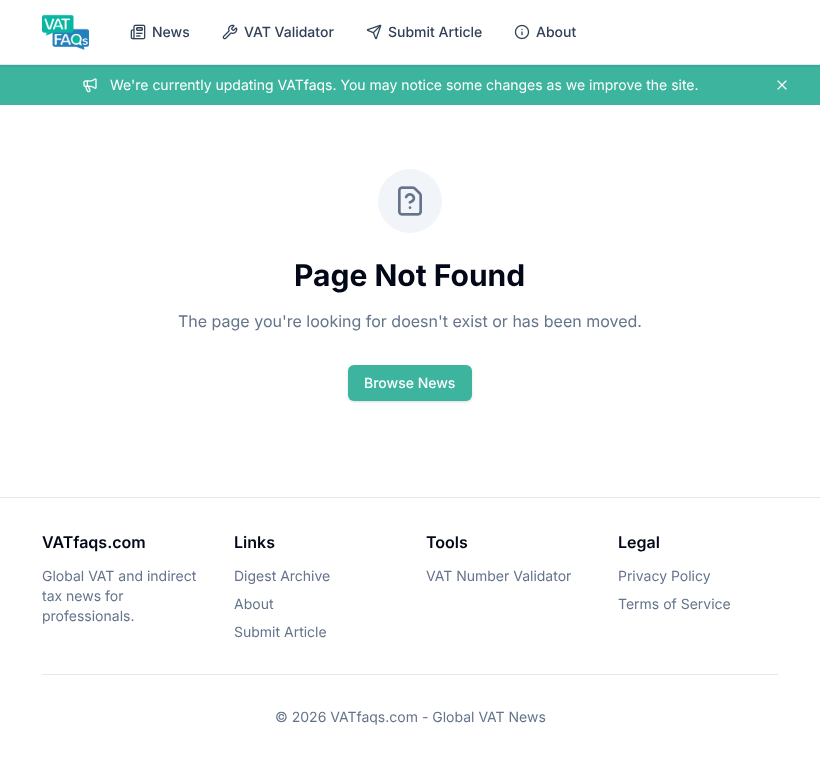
<svg xmlns="http://www.w3.org/2000/svg" width="820" height="759">
<style>
.a{font:500 14px Inter;fill:#314158}
.b{font:14px Inter;fill:#fff}
.c{font:bold 30px Inter;fill:#020817}
.d{font:16px Inter;fill:#64748b}
.e{font:500 14px Inter;fill:#fff}
.f{font:600 16px Inter;fill:#020817}
.g{font:14px Inter;fill:#64748b}
</style>
<defs>
<clipPath id="clip1"><path d="M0 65h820v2H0z"/></clipPath>
</defs>
<rect width="100%" height="100%" fill="#fff"/>
<path fill="#3cb49e" d="M0 65h820v40H0z"/>
<g clip-path="url(#clip1)">
<path fill="#0000001a" filter="blur(1.5px)" d="M0 1h820v65H0z"/>
</g>
<path fill="#e2e8f0" d="M0 64h820v1H0z"/>
<image href="1.png" x="42" y="14" width="47" height="36"/>
<image href="2.png" x="130" y="24" width="16" height="16"/>
<image href="3.png" x="222" y="24" width="16" height="16"/>
<image href="4.png" x="366" y="24" width="16" height="16"/>
<image href="5.png" x="514" y="24" width="16" height="16"/>
<image href="6.png" x="83" y="78" width="14" height="15"/>
<image href="7.png" x="777" y="80" width="10" height="10"/>
<circle fill="#f1f5f9" cx="410" cy="201" r="32"/>
<image href="8.png" x="398" y="186" width="24" height="30"/>
<rect fill="#0000001a" filter="blur(1px)" x="349" y="367" width="122" height="34" rx="5"/>
<rect fill="#0000001a" filter="blur(1.5px)" x="348" y="366" width="124" height="36" rx="6"/>
<rect fill="#3cb49e" x="348" y="365" width="124" height="36" rx="6"/>
<path fill="#e2e8f0" d="M0 497h820v1H0z"/>
<path fill="#e2e8f0" d="M42 674h736v1H42z"/>
<text class="a" x="152" y="37">News</text>
<text class="a" x="244" y="37">VAT Validator</text>
<text class="a" x="388" y="37">Submit Article</text>
<text class="a" x="536" y="37">About</text>
<text class="b" x="110" y="90">We're currently updating VATfaqs. You may notice some changes as we improve the site.</text>
<text class="c" x="294" y="286">Page Not Found</text>
<text class="d" x="178" y="327">The page you're looking for doesn't exist or has been moved.</text>
<text class="e" x="364" y="388">Browse News</text>
<text class="f" x="42" y="548">VATfaqs.com</text>
<text class="g" x="42" y="581">Global VAT and indirect</text>
<text class="g" x="42" y="601">tax news for</text>
<text class="g" x="42" y="621">professionals.</text>
<text class="f" x="234" y="548">Links</text>
<text class="g" x="234" y="581">Digest Archive</text>
<text class="g" x="234" y="609">About</text>
<text class="g" x="234" y="637">Submit Article</text>
<text class="f" x="426" y="548">Tools</text>
<text class="g" x="426" y="581">VAT Number Validator</text>
<text class="f" x="618" y="548">Legal</text>
<text class="g" x="618" y="581">Privacy Policy</text>
<text class="g" x="618" y="609">Terms of Service</text>
<text class="g" x="275" y="722">© 2026 VATfaqs.com - Global VAT News</text>
</svg>
